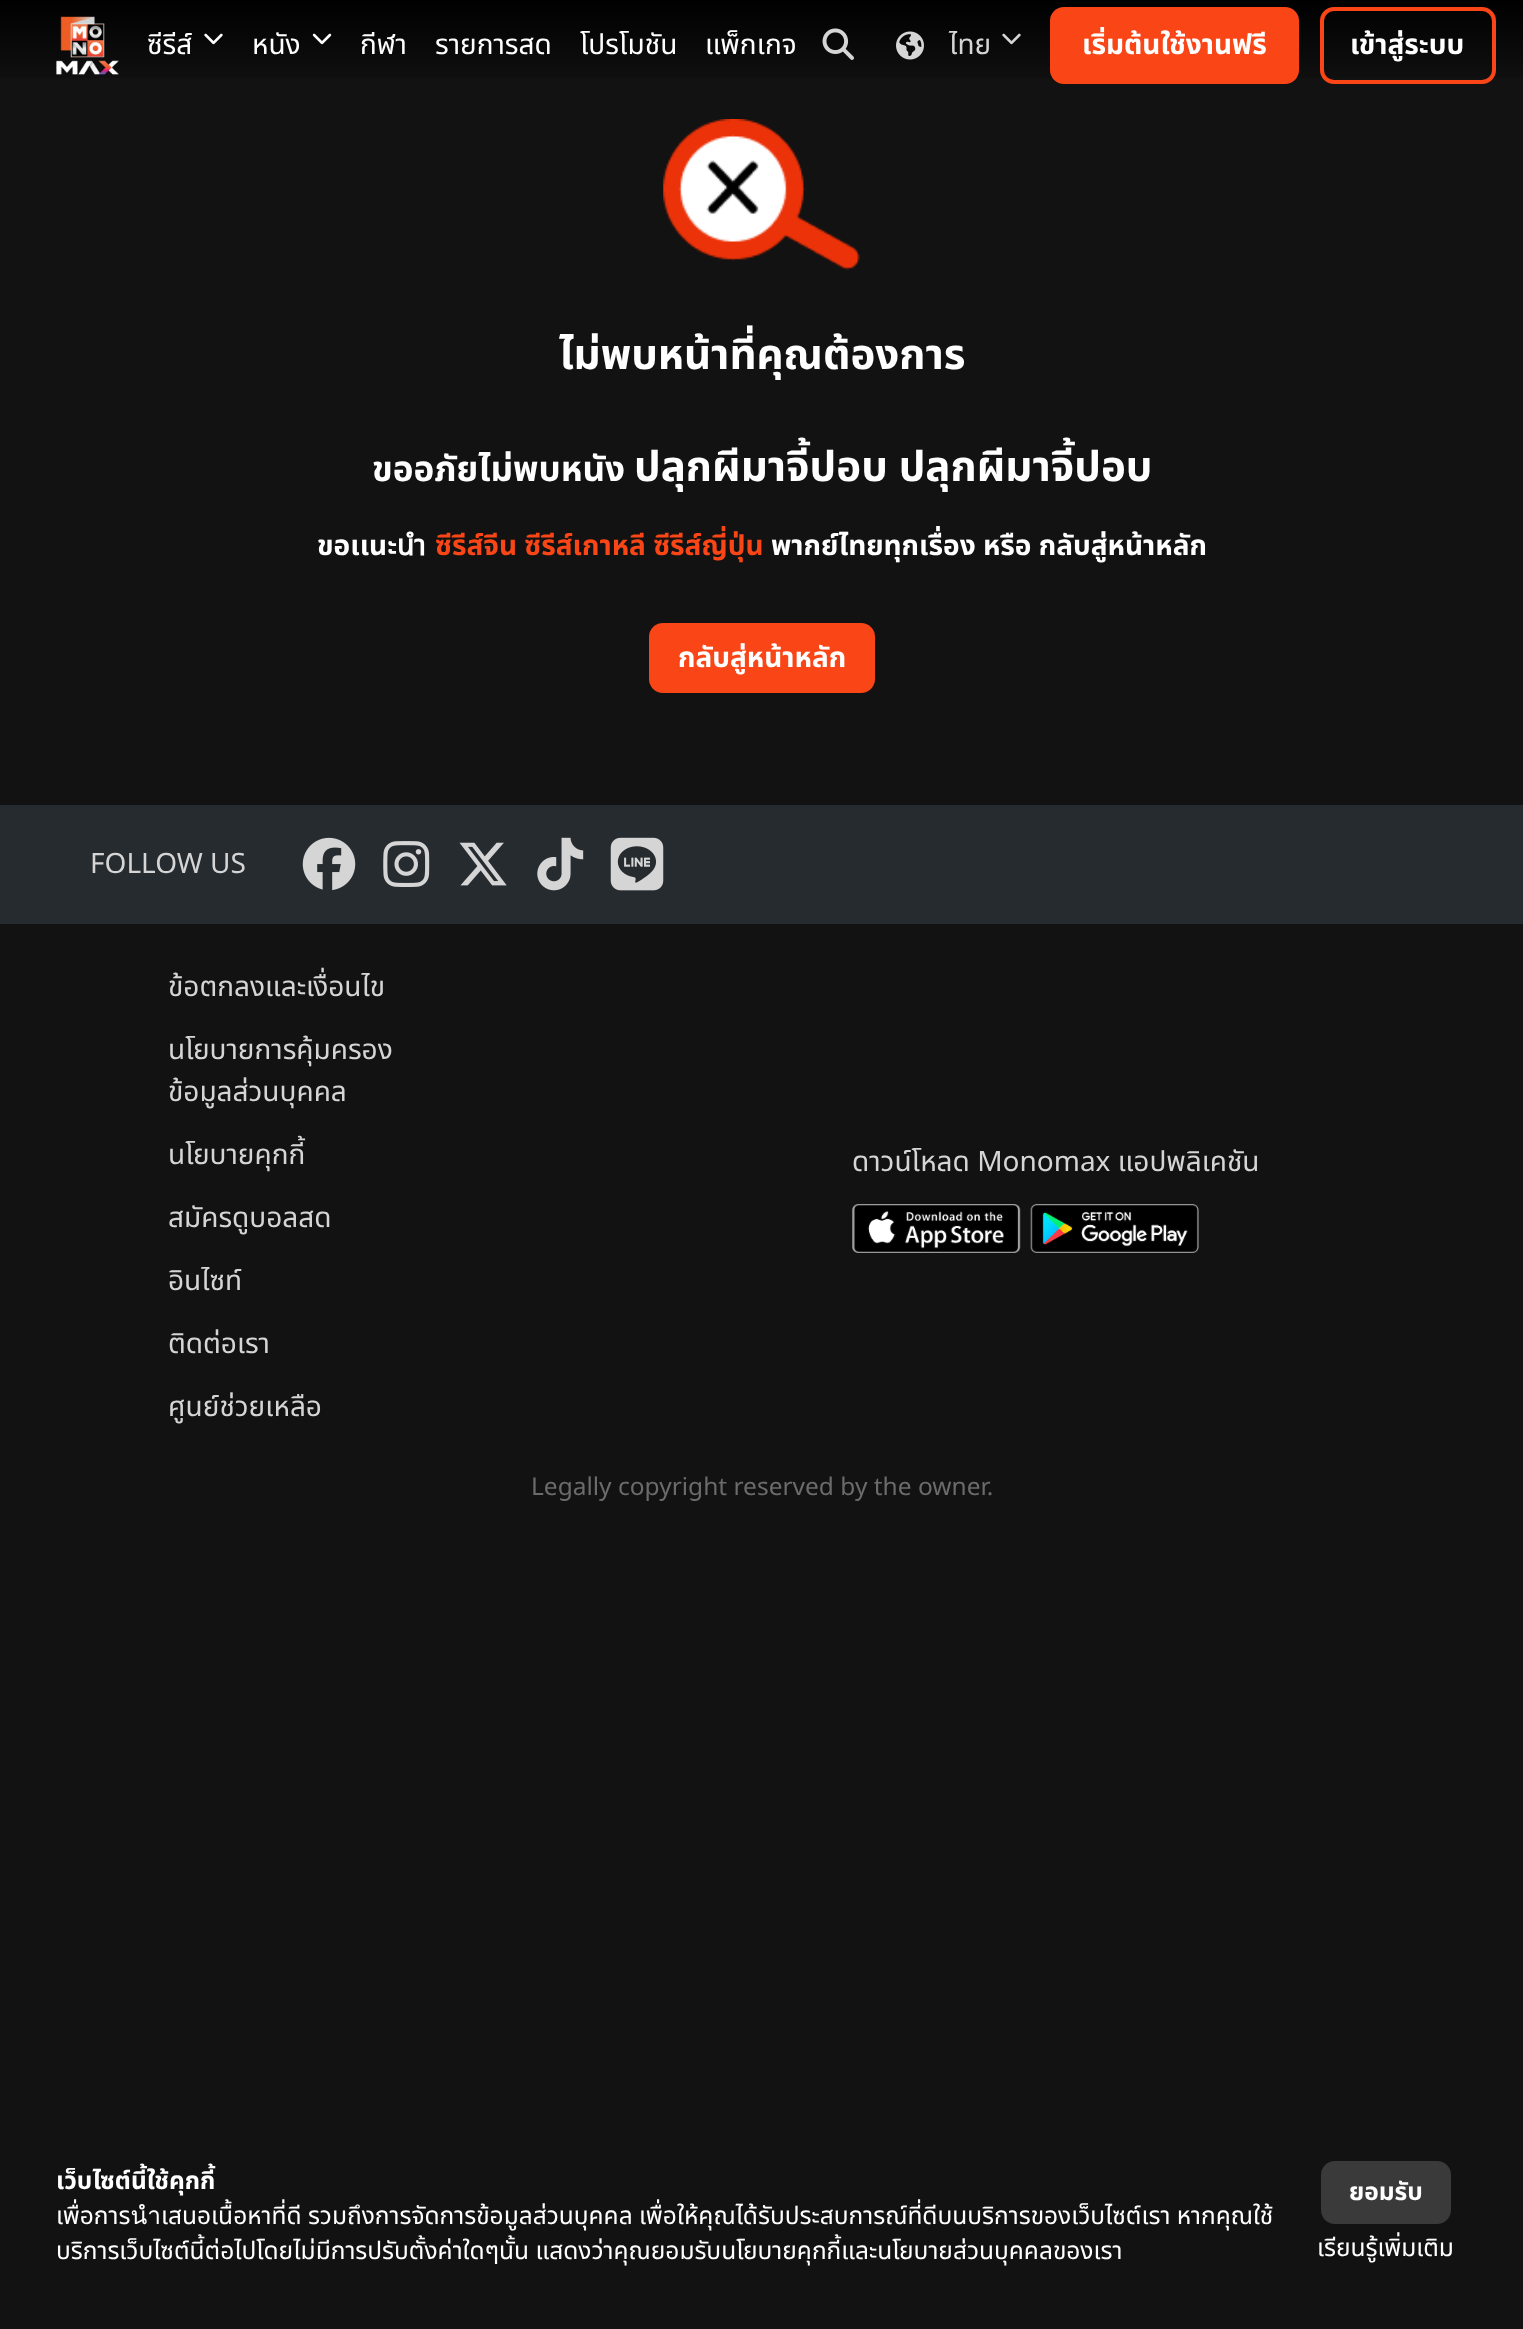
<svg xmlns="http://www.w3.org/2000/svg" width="1523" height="2329">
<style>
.a{font:28px Noto Sans Thai;fill:#fff}
.b{font:28px Noto Sans Thai;fill:#d5d5d5}
.c{font:bold 28px Noto Sans Thai;fill:#fff}
.d{font:bold 42px Noto Sans Thai;fill:#fff}
.e{font:bold 35px Noto Sans Thai;fill:#fff}
.f{font:bold 28px Noto Sans Thai;fill:#fa4616}
.g{font:24.5px Noto Sans Thai;fill:#6b6b6b}
.h{font:bold 24.5px Noto Sans Thai;fill:#fff}
.i{font:24.5px Noto Sans Thai;fill:#fff}
</style>
<defs>
<linearGradient id="g1" gradientUnits="userSpaceOnUse" x1="762" y1="0" x2="762" y2="91"><stop offset="0" stop-color="#000"/><stop offset="1" stop-color="#121212"/></linearGradient>
</defs>
<rect width="100%" height="100%" fill="#121212"/>
<path fill="url(#g1)" d="M0 0h1523v78H0z"/>
<image href="1.png" x="56" y="16" width="63" height="59"/>
<image href="2.png" x="204" y="33" width="19" height="12"/>
<image href="3.png" x="312" y="33" width="20" height="12"/>
<image href="4.png" x="822" y="28" width="32" height="32"/>
<image href="5.png" x="896" y="31" width="28" height="29"/>
<image href="6.png" x="1002" y="33" width="19" height="12"/>
<rect fill="#fa4616" x="1050" y="7" width="249" height="77" rx="14"/>
<rect fill="none" stroke="#fa4616" stroke-width="4" x="1322" y="9" width="172" height="73" rx="12"/>
<image href="7.png" x="663" y="119" width="197" height="151"/>
<rect fill="#fa4616" x="649" y="623" width="226" height="70" rx="14"/>
<path fill="#262b2f" d="M0 805h1523v119H0z"/>
<image href="8.png" x="302" y="837" width="54" height="54"/>
<image href="9.png" x="383" y="841" width="47" height="46"/>
<image href="10.png" x="459" y="842" width="48" height="44"/>
<image href="11.png" x="537" y="837" width="47" height="54"/>
<image href="12.png" x="610" y="837" width="54" height="54"/>
<image href="13.png" x="852" y="1204" width="169" height="49"/>
<image href="14.png" x="1030" y="1204" width="169" height="49"/>
<rect fill="#3a3a3a" x="1321" y="2161" width="130" height="63" rx="14"/>
<text class="a" x="147" y="54">ซีรีส์</text>
<text class="a" x="252" y="54">หนัง</text>
<text class="a" x="360" y="54">กีฬา</text>
<text class="a" x="435" y="54">รายการสด</text>
<text class="a" x="580" y="54">โปรโมชัน</text>
<text class="a" x="705" y="54">แพ็กเกจ</text>
<text class="b" x="949" y="54">ไทย</text>
<text class="c" x="1082" y="54">เริ่มต้นใช้งานฟรี</text>
<text class="c" x="1350" y="54">เข้าสู่ระบบ</text>
<text class="d" x="559" y="369">ไม่พบหน้าที่คุณต้องการ</text>
<text class="e" x="372" y="481">ขออภัยไม่พบหนัง</text>
<text class="d" x="634" y="481">ปลุกผีมาจี้ปอบ ปลุกผีมาจี้ปอบ</text>
<text class="c" x="317" y="555">ขอเเนะนำ</text>
<text class="f" x="435" y="555">ซีรีส์จีน ซีรีส์เกาหลี ซีรีส์ญี่ปุ่น</text>
<text class="c" x="771" y="555">พากย์ไทยทุกเรื่อง หรือ กลับสู่หน้าหลัก</text>
<text class="c" x="678" y="667">กลับสู่หน้าหลัก</text>
<text class="b" x="90" y="873">FOLLOW US</text>
<text class="b" x="168" y="996">ข้อตกลงและเงื่อนไข</text>
<text class="b" x="168" y="1059">นโยบายการคุ้มครอง</text>
<text class="b" x="168" y="1101">ข้อมูลส่วนบุคคล</text>
<text class="b" x="168" y="1164">นโยบายคุกกี้</text>
<text class="b" x="168" y="1227">สมัครดูบอลสด</text>
<text class="b" x="168" y="1290">อินไซท์</text>
<text class="b" x="168" y="1353">ติดต่อเรา</text>
<text class="b" x="168" y="1416">ศูนย์ช่วยเหลือ</text>
<text class="b" x="852" y="1171">ดาวน์โหลด Monomax แอปพลิเคชัน</text>
<text class="g" x="531" y="1495">Legally copyright reserved by the owner.</text>
<text class="h" x="56" y="2189">เว็บไซต์นี้ใช้คุกกี้</text>
<text class="i" x="56" y="2224">เพื่อการนำเสนอเนื้อหาที่ดี รวมถึงการจัดการข้อมูลส่วนบุคคล เพื่อให้คุณได้รับประสบการณ์ที่ดีบนบริการของเว็บไซต์เรา หากคุณใช้</text>
<text class="i" x="56" y="2259">บริการเว็บไซต์นี้ต่อไปโดยไม่มีการปรับตั้งค่าใดๆนั้น แสดงว่าคุณยอมรับนโยบายคุกกี้และนโยบายส่วนบุคคลของเรา</text>
<text class="h" x="1349" y="2200">ยอมรับ</text>
<text class="i" x="1317" y="2256">เรียนรู้เพิ่มเติม</text>
</svg>
